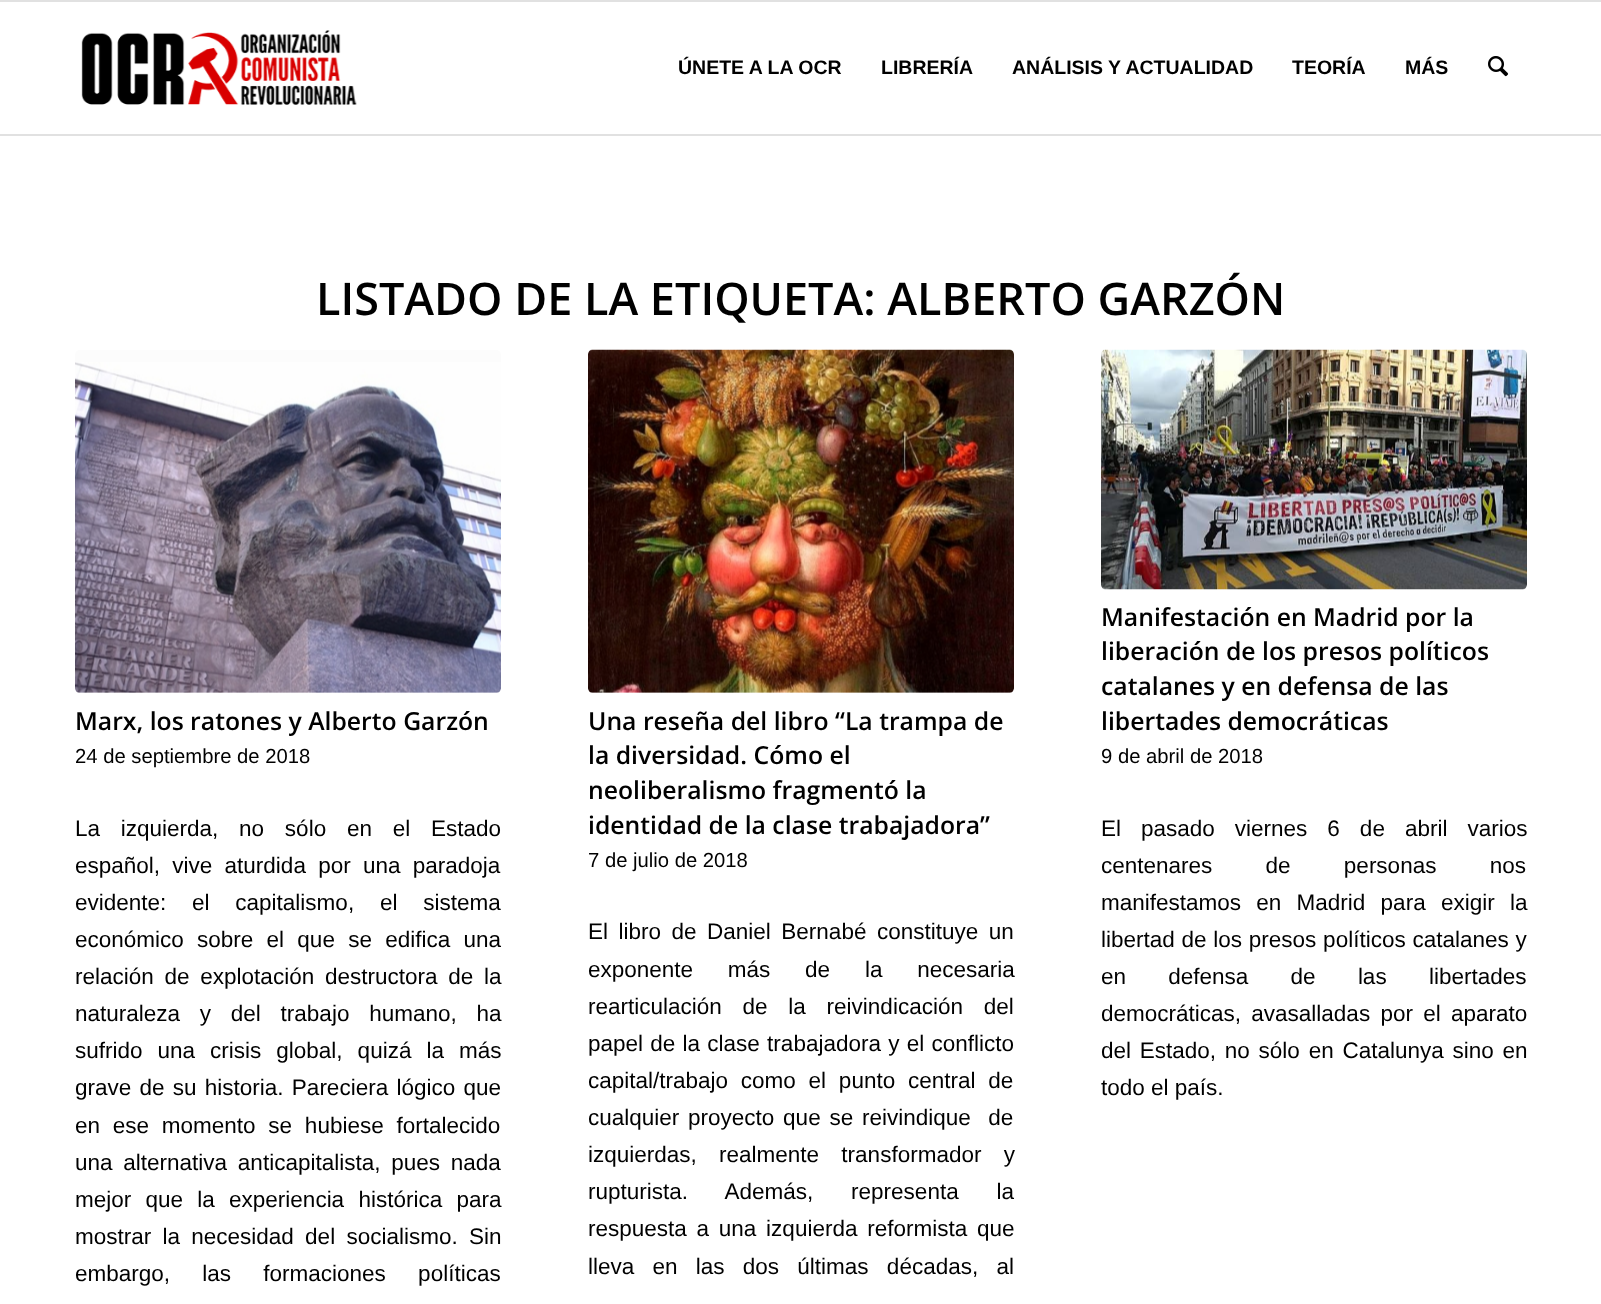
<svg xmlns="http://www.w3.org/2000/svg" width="1601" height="1304">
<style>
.a{font:bold 19.5px Liberation Sans;fill:#000}
.b{font:600 45px Open Sans;fill:#000}
.c{font:600 24.75px Open Sans;fill:#000}
.d{font:20.25px Liberation Sans;fill:#000}
.e{font:22.5px Liberation Sans;fill:#000}
</style>
<rect width="100%" height="100%" fill="#fff"/>
<path fill="#e1e1e1" d="M0 0h1601v2H0z"/>
<path fill="#e1e1e1" d="M0 134h1601v2H0z"/>
<image href="1.png" x="81" y="30" width="276" height="75"/>
<image href="2.png" x="1488" y="56" width="21" height="21"/>
<rect fill="#fcfcfc" x="75" y="350" width="426" height="343" rx="5"/>
<image href="3.png" x="75" y="362" width="426" height="331"/>
<rect fill="#fcfcfc" x="588" y="350" width="426" height="343" rx="5"/>
<image href="4.png" x="588" y="349" width="426" height="344"/>
<rect fill="#fcfcfc" x="1101" y="350" width="426" height="240" rx="5"/>
<image href="5.png" x="1101" y="349" width="426" height="241"/>
<text class="a" x="678" y="74">ÚNETE A LA OCR</text>
<text class="a" x="881" y="74">LIBRERÍA</text>
<text class="a" x="1012" y="74">ANÁLISIS Y ACTUALIDAD</text>
<text class="a" x="1292" y="74">TEORÍA</text>
<text class="a" x="1405" y="74">MÁS</text>
<text class="b" x="316" y="315">LISTADO DE LA ETIQUETA: ALBERTO GARZÓN</text>
<text class="c" x="75" y="730">Marx, los ratones y Alberto Garzón</text>
<text class="d" x="75" y="763">24 de septiembre de 2018</text>
<text class="e" x="75" y="836" word-spacing="14.5">La izquierda, no sólo en el Estado</text>
<text class="e" x="75" y="873" word-spacing="6">español, vive aturdida por una paradoja</text>
<text class="e" x="75" y="910" word-spacing="19.5">evidente: el capitalismo, el sistema</text>
<text class="e" x="75" y="947" word-spacing="7">económico sobre el que se edifica una</text>
<text class="e" x="75" y="984" word-spacing="4.5">relación de explotación destructora de la</text>
<text class="e" x="75" y="1021" word-spacing="13.5">naturaleza y del trabajo humano, ha</text>
<text class="e" x="75" y="1058" word-spacing="8.75">sufrido una crisis global, quizá la más</text>
<text class="e" x="75" y="1095" word-spacing="2">grave de su historia. Pareciera lógico que</text>
<text class="e" x="75" y="1133" word-spacing="6.5">en ese momento se hubiese fortalecido</text>
<text class="e" x="75" y="1170" word-spacing="4.5">una alternativa anticapitalista, pues nada</text>
<text class="e" x="75" y="1207" word-spacing="8">mejor que la experiencia histórica para</text>
<text class="e" x="75" y="1244" word-spacing="5">mostrar la necesidad del socialismo. Sin</text>
<text class="e" x="75" y="1281" word-spacing="26">embargo, las formaciones políticas</text>
<text class="c" x="588" y="730">Una reseña del libro “La trampa de</text>
<text class="c" x="588" y="764">la diversidad. Cómo el</text>
<text class="c" x="588" y="799">neoliberalismo fragmentó la</text>
<text class="c" x="588" y="834">identidad de la clase trabajadora”</text>
<text class="d" x="588" y="867">7 de julio de 2018</text>
<text class="e" x="588" y="939" word-spacing="4.25">El libro de Daniel Bernabé constituye un</text>
<text class="e" x="588" y="977" word-spacing="28.5">exponente más de la necesaria</text>
<text class="e" x="588" y="1014" word-spacing="14.5">rearticulación de la reivindicación del</text>
<text class="e" x="588" y="1051" word-spacing="1">papel de la clase trabajadora y el conflicto</text>
<text class="e" x="588" y="1088" word-spacing="6.5">capital/trabajo como el punto central de</text>
<text class="e" xml:space="preserve" x="588" y="1125" word-spacing="2.5">cualquier proyecto que se reivindique  de</text>
<text class="e" x="588" y="1162" word-spacing="16">izquierdas, realmente transformador y</text>
<text class="e" x="588" y="1199" word-spacing="31.5">rupturista. Además, representa la</text>
<text class="e" x="588" y="1236" word-spacing="3.5">respuesta a una izquierda reformista que</text>
<text class="e" x="588" y="1274" word-spacing="12">lleva en las dos últimas décadas, al</text>
<text class="c" x="1101" y="626">Manifestación en Madrid por la</text>
<text class="c" x="1101" y="660">liberación de los presos políticos</text>
<text class="c" x="1101" y="695">catalanes y en defensa de las</text>
<text class="c" x="1101" y="730">libertades democráticas</text>
<text class="d" x="1101" y="763">9 de abril de 2018</text>
<text class="e" x="1101" y="836" word-spacing="13.75">El pasado viernes 6 de abril varios</text>
<text class="e" x="1101" y="873" word-spacing="47">centenares de personas nos</text>
<text class="e" x="1101" y="910" word-spacing="9">manifestamos en Madrid para exigir la</text>
<text class="e" x="1101" y="947" word-spacing="0.5">libertad de los presos políticos catalanes y</text>
<text class="e" x="1101" y="984" word-spacing="36">en defensa de las libertades</text>
<text class="e" x="1101" y="1021" word-spacing="4">democráticas, avasalladas por el aparato</text>
<text class="e" x="1101" y="1058" word-spacing="2.5">del Estado, no sólo en Catalunya sino en</text>
<text class="e" x="1101" y="1095">todo el país.</text>
</svg>
